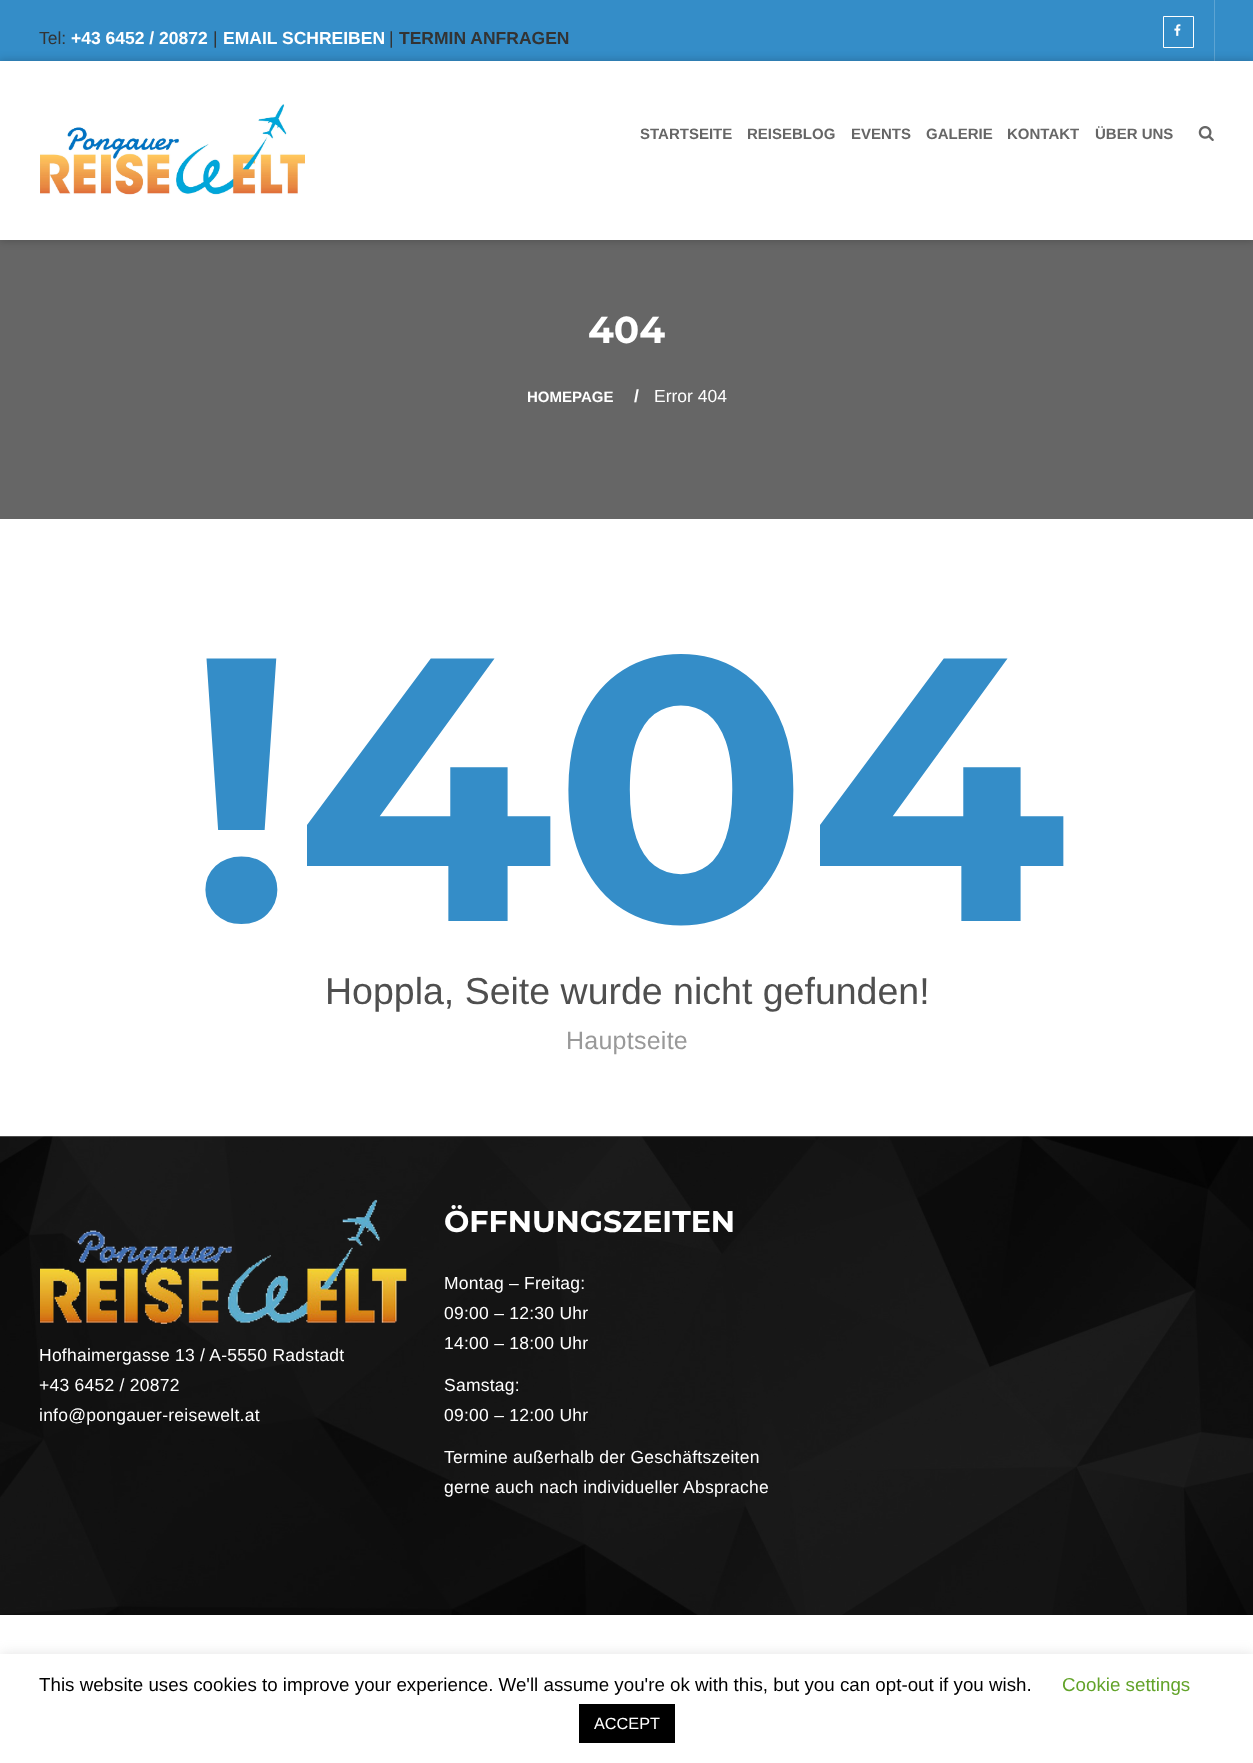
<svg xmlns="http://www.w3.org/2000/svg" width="1253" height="1763">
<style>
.a{font:17.5px Liberation Sans;fill:#333}
.b{font:bold 17.5px Liberation Sans;fill:#fff}
.c{font:bold 17.5px Liberation Sans;fill:#333}
.d{font:bold 15px Liberation Sans;fill:#666}
.e{font:bold 37.5px Montserrat;fill:#fff}
.f{font:bold 15px Liberation Sans;fill:#fff}
.g{font:17.5px Liberation Sans;fill:#fff}
.h{font:bold 375px Montserrat;fill:#348dc8}
.i{font:37.5px Liberation Sans;fill:#4f4f4f}
.j{font:25px Liberation Sans;letter-spacing:0.25px;fill:#999}
.k{font:17.5px Liberation Sans;letter-spacing:0.25px;fill:#fff}
.l{font:bold 30px Montserrat;fill:#fff}
.m{font:18.75px Liberation Sans;fill:#000}
.n{font:18.75px Liberation Sans;fill:#62a329}
.o{font:16.25px Liberation Sans;fill:#fff}
</style>
<rect width="100%" height="100%" fill="#fff"/>
<path fill="#348dc8" d="M0 0h1253v61H0z"/>
<path fill="#5da4d3" d="M1214 0h1v61H1214z"/>
<path fill="none" stroke="#fff" d="M1163.5 16.5h30v31H1163.5z"/>
<image href="1.png" x="1174" y="24" width="7" height="12"/>
<path fill="#666" d="M0 240h1253v279H0z"/>
<path fill="#00000033" filter="blur(4px)" d="M-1 60h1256v181H-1z"/>
<path fill="#fff" d="M0 61h1253v179H0z"/>
<image href="2.png" x="40" y="104" width="265" height="91"/>
<image href="3.png" x="1198" y="126" width="16" height="15"/>
<image href="4.png" x="0" y="1136" width="1253" height="479"/>
<image href="5.png" x="40" y="1199" width="367" height="125"/>
<path fill="#acabab4d" filter="blur(6px)" d="M0 1653h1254v110H0z"/>
<path fill="#fff" d="M0 1654h1253v109H0z"/>
<path fill="#000" d="M579 1704h96v39H579z"/>
<text class="a" x="39" y="44">Tel:</text>
<text class="b" x="71" y="44">+43 6452 / 20872</text>
<text class="a" x="213" y="44">|</text>
<text class="b" x="223" y="44">EMAIL SCHREIBEN</text>
<text class="a" x="389" y="44">|</text>
<text class="c" x="399" y="44">TERMIN ANFRAGEN</text>
<text class="d" x="640" y="139">STARTSEITE</text>
<text class="d" x="747" y="139">REISEBLOG</text>
<text class="d" x="851" y="139">EVENTS</text>
<text class="d" x="926" y="139">GALERIE</text>
<text class="d" x="1007" y="139">KONTAKT</text>
<text class="d" x="1095" y="139">ÜBER UNS</text>
<text class="e" x="588" y="343">404</text>
<text class="f" x="527" y="402">HOMEPAGE</text>
<text class="b" x="634" y="402">/</text>
<text class="g" x="654" y="402">Error 404</text>
<text class="h" x="187" y="921">!404</text>
<text class="i" x="325" y="1004">Hoppla, Seite wurde nicht gefunden!</text>
<text class="j" x="566" y="1049">Hauptseite</text>
<text class="k" x="39" y="1361">Hofhaimergasse 13 / A-5550 Radstadt</text>
<text class="k" x="39" y="1391">+43 6452 / 20872</text>
<text class="k" x="39" y="1421">info@pongauer-reisewelt.at</text>
<text class="l" x="444" y="1232">ÖFFNUNGSZEITEN</text>
<text class="k" x="444" y="1289">Montag – Freitag:</text>
<text class="k" x="444" y="1319">09:00 – 12:30 Uhr</text>
<text class="k" x="444" y="1349">14:00 – 18:00 Uhr</text>
<text class="k" x="444" y="1391">Samstag:</text>
<text class="k" x="444" y="1421">09:00 – 12:00 Uhr</text>
<text class="k" x="444" y="1463">Termine außerhalb der Geschäftszeiten</text>
<text class="k" x="444" y="1493">gerne auch nach individueller Absprache</text>
<text class="m" x="39" y="1691">This website uses cookies to improve your experience. We'll assume you're ok with this, but you can opt-out if you wish.</text>
<text class="n" x="1062" y="1691">Cookie settings</text>
<text class="o" x="594" y="1729">ACCEPT</text>
</svg>
